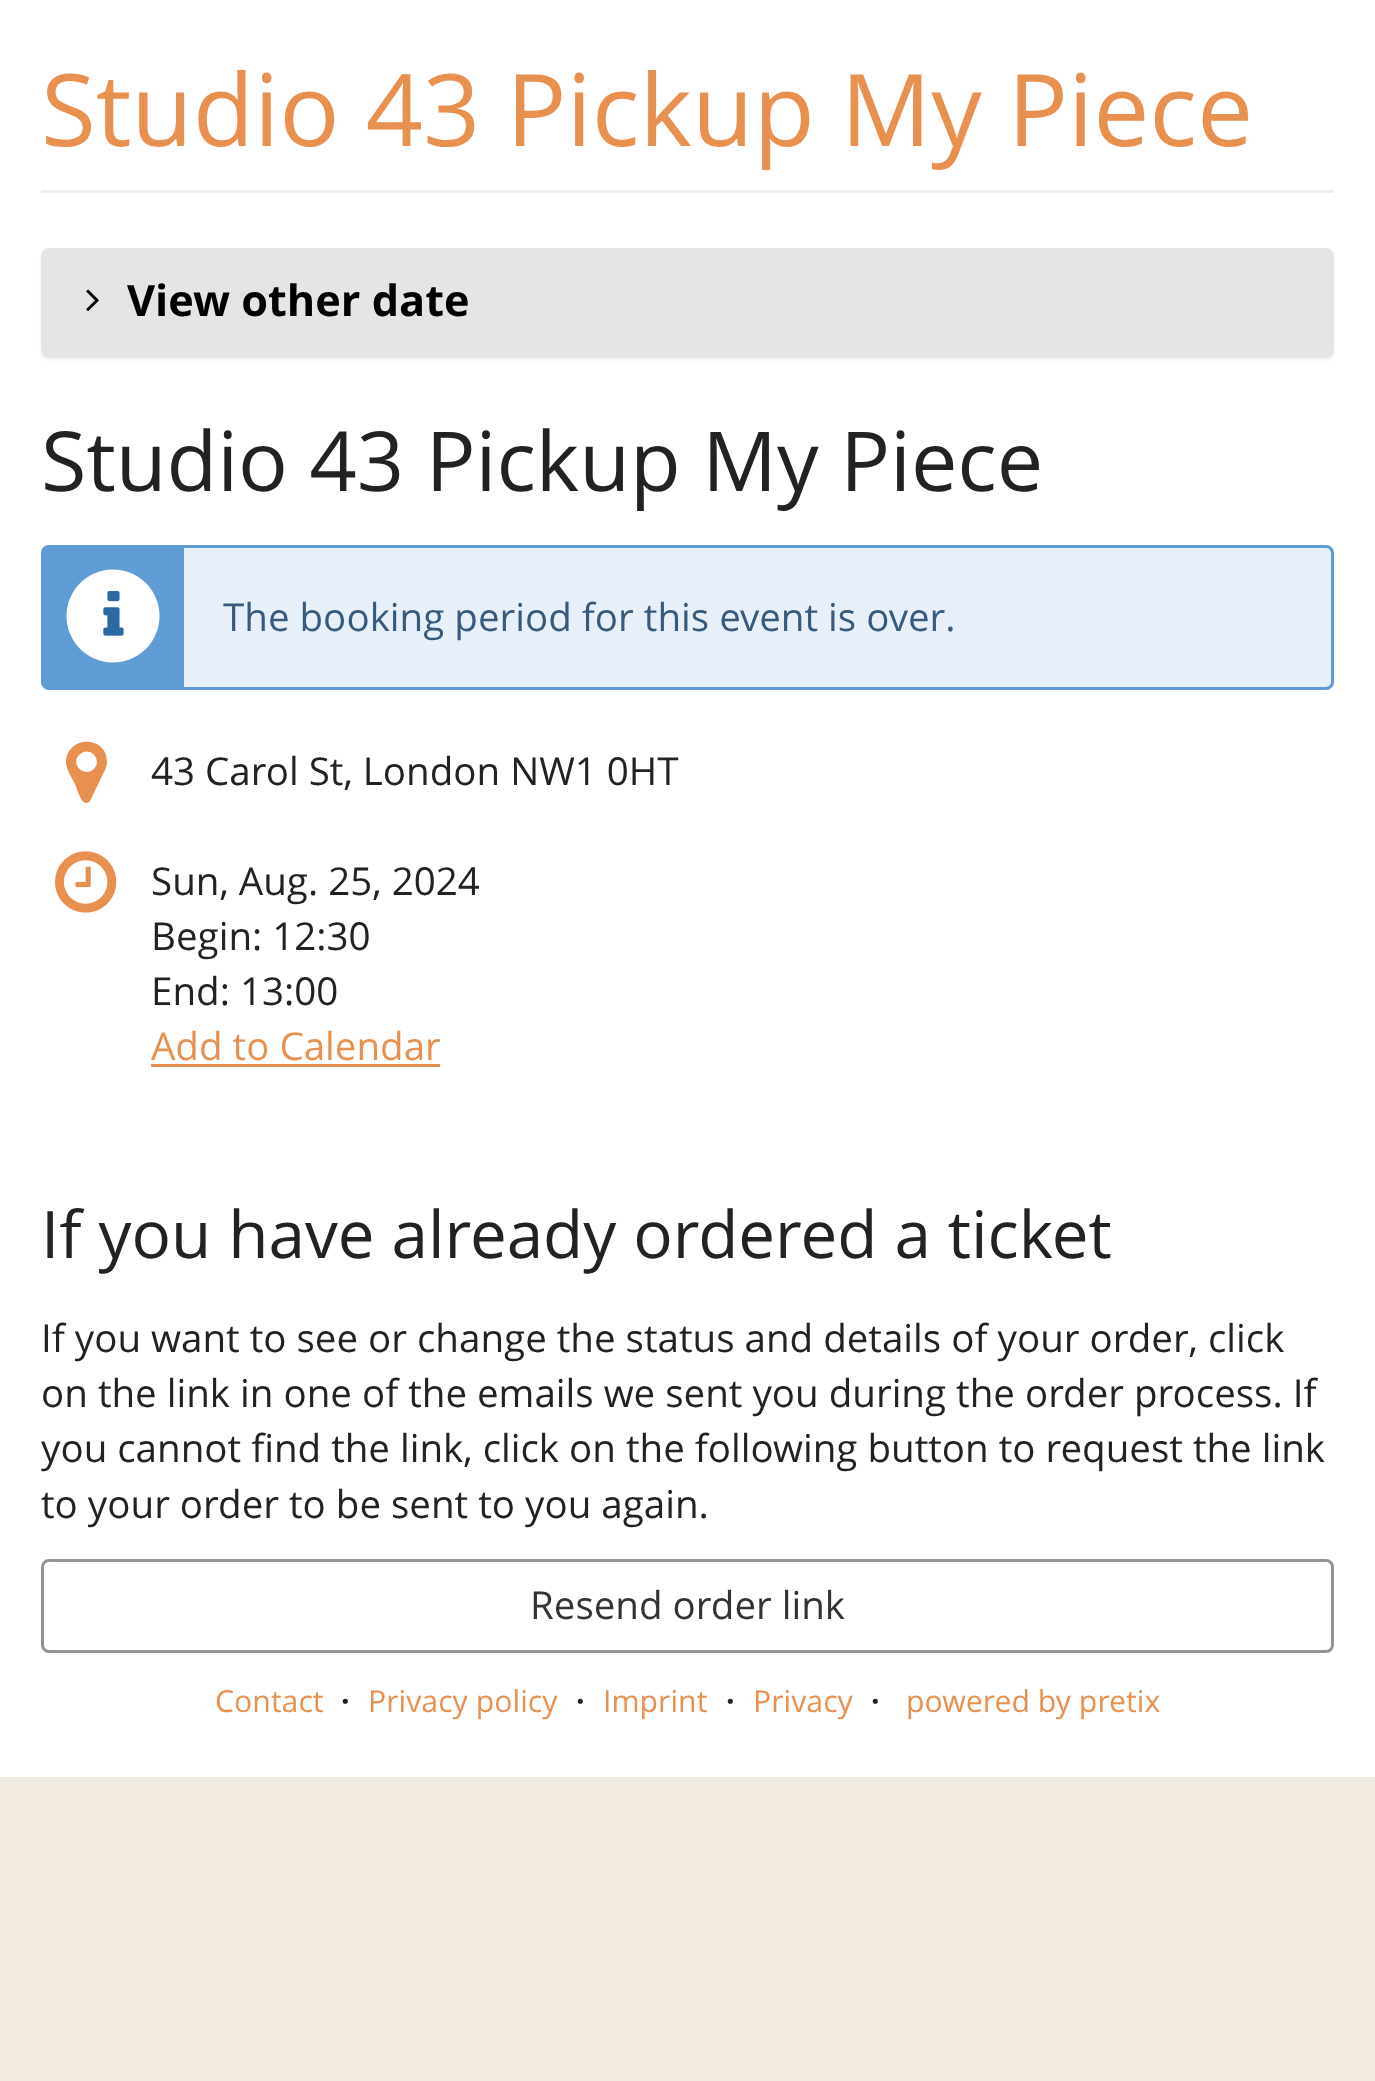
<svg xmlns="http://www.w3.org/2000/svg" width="1375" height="2081">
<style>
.a{font:100.1px Open Sans;fill:#e89050}
.b{font:bold 43.25px Open Sans;fill:#000}
.c{font:82.75px Open Sans;fill:#222}
.d{font:38.5px Open Sans;fill:#375a7b}
.e{font:38.5px Open Sans;fill:#222}
.f{font:38.5px Open Sans;fill:#e89050}
.g{font:65.5px Open Sans;fill:#222}
.h{font:38.5px Open Sans;fill:#333}
.i{font:30.25px Open Sans;fill:#e89050}
.j{font:bold 30.25px Open Sans;fill:#222}
</style>
<rect width="100%" height="100%" fill="#f1ebe1"/>
<path fill="#fff" d="M0 0h1375v1777H0z"/>
<path fill="#eee" d="M41 190h1293v3H41z"/>
<rect fill="#0000000d" filter="blur(1.5px)" x="41" y="250" width="1293" height="110" rx="8"/>
<rect fill="none" stroke="#e5e5e5" stroke-width="3" x="42.5" y="249.5" width="1290" height="107" rx="6.5"/>
<path fill="#e5e5e5" d="M44 251h1287v104H44z"/>
<image href="1.png" x="86" y="289" width="13" height="22"/>
<rect fill="#e7f0f9" stroke="#5f9cd4" stroke-width="3" x="42.5" y="546.5" width="1290" height="142" rx="6.5"/>
<path fill="#5f9cd4" d="M44 548h140v139H44z"/>
<image href="2.png" x="66" y="569" width="94" height="94"/>
<path fill="#e89050" d="M94 769c9-10-5-24-15-14c-9 9 5 23 15 14zm13-7c0 5-2 8-4 12l-13 27c0 1-2 1-3 2c-5 0-6-5-8-8l-4-11c-3-6-9-15-9-22c1-27 41-27 41 0z"/>
<image href="3.png" x="55" y="851" width="62" height="62"/>
<path fill="#e89050" d="M151 1064h289v3H151z"/>
<rect fill="none" stroke="#949494" stroke-width="3" x="42.5" y="1560.5" width="1290" height="91" rx="6.5"/>
<text class="a" x="41" y="146">Studio 43 Pickup My Piece</text>
<text class="b" x="127" y="316">View other date</text>
<text class="c" x="41" y="491">Studio 43 Pickup My Piece</text>
<text class="d" x="223" y="631">The booking period for this event is over.</text>
<text class="e" x="151" y="785">43 Carol St, London NW1 0HT</text>
<text class="e" x="151" y="895">Sun, Aug. 25, 2024</text>
<text class="e" x="151" y="950">Begin: 12:30</text>
<text class="e" x="151" y="1005">End: 13:00</text>
<text class="f" x="151" y="1060">Add to Calendar</text>
<text class="g" x="41" y="1258">If you have already ordered a ticket</text>
<text class="e" x="41" y="1352">If you want to see or change the status and details of your order, click</text>
<text class="e" x="41" y="1407">on the link in one of the emails we sent you during the order process. If</text>
<text class="e" x="41" y="1462">you cannot find the link, click on the following button to request the link</text>
<text class="e" x="41" y="1518">to your order to be sent to you again.</text>
<text class="h" x="530" y="1619">Resend order link</text>
<text class="i" x="215" y="1712">Contact</text>
<text class="j" x="341" y="1712">·</text>
<text class="i" x="368" y="1712">Privacy policy</text>
<text class="j" x="576" y="1712">·</text>
<text class="i" x="603" y="1712">Imprint</text>
<text class="j" x="726" y="1712">·</text>
<text class="i" x="753" y="1712">Privacy</text>
<text class="j" x="871" y="1712">·</text>
<text class="i" x="906" y="1712">powered by pretix</text>
</svg>
